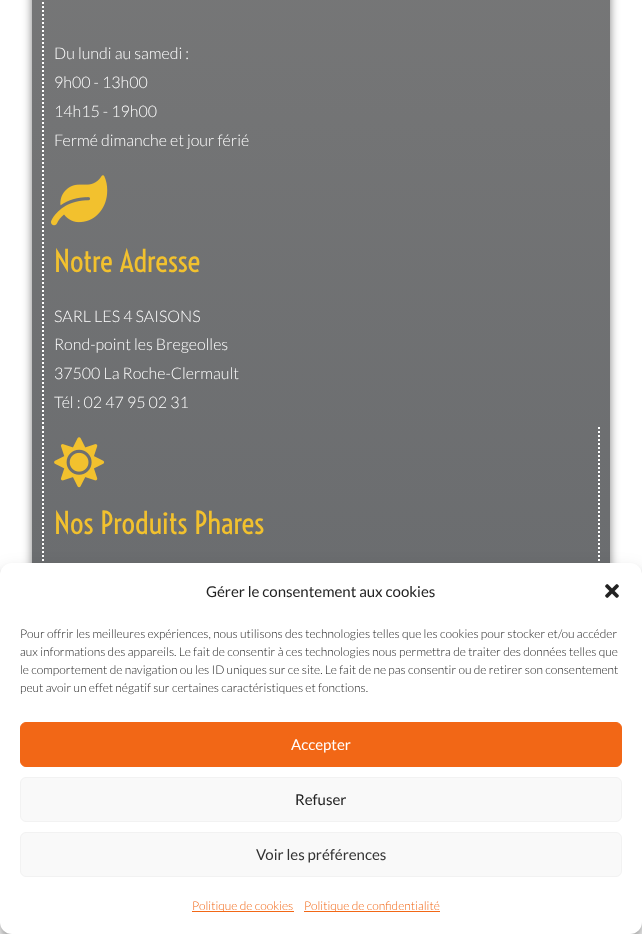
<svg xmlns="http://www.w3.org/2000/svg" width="642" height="934">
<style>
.a{font:300 16px Lato;fill:#fff}
.b{font:30px Voltaire;fill:#f2c12e}
.c{font:15px Lato;fill:#222}
.d{font:300 12px Lato;fill:#222}
.e{font:15px Lato;fill:#fff}
.f{font:15px Lato;fill:#333}
.g{font:300 12px Lato;fill:#f26716}
</style>
<defs>
<linearGradient id="g1" gradientUnits="userSpaceOnUse" x1="321" y1="-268" x2="321" y2="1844"><stop offset="0" stop-color="#7a7a7a"/><stop offset="1" stop-color="#54595f"/></linearGradient>
</defs>
<rect width="100%" height="100%" fill="#fff"/>
<path fill="#00000080" filter="blur(5px)" d="M32 -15h578v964H32z"/>
<path fill="url(#g1)" d="M32 0h578v563H32z"/>
<path fill="none" stroke="#fff" stroke-width="2" stroke-dasharray="2 2" d="M43-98v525"/>
<image href="1.png" x="51" y="175" width="57" height="51"/>
<path fill="none" stroke="#fff" stroke-width="2" stroke-dasharray="2 2" d="M599 427v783"/>
<path fill="none" stroke="#fff" stroke-width="2" stroke-dasharray="2 2" d="M43 427v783"/>
<image href="2.png" x="54" y="437" width="51" height="51"/>
<rect fill="#0000003b" filter="blur(3px)" y="569" width="642" height="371" rx="12"/>
<rect fill="#00000030" filter="blur(10px)" y="573" width="642" height="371" rx="12"/>
<rect fill="#fff" y="563" width="642" height="371" rx="12"/>
<image href="3.png" x="605" y="584" width="14" height="14"/>
<rect fill="#f26716" stroke="#f26716" x="20.5" y="722.5" width="601" height="44" rx="5.5"/>
<rect fill="#f9f9f9" stroke="#f2f2f2" x="20.5" y="777.5" width="601" height="44" rx="5.5"/>
<rect fill="#f9f9f9" stroke="#f2f2f2" x="20.5" y="832.5" width="601" height="44" rx="5.5"/>
<path fill="#f26716" d="M192 911h102v1H192z"/>
<path fill="#f26716" d="M304 911h136v1H304z"/>
<text class="a" x="54" y="59">Du lundi au samedi :</text>
<text class="a" x="54" y="88">9h00 - 13h00</text>
<text class="a" x="54" y="117">14h15 - 19h00</text>
<text class="a" x="54" y="146">Fermé dimanche et jour férié</text>
<text class="b" x="54" y="272">Notre Adresse</text>
<text class="a" x="54" y="322">SARL LES 4 SAISONS</text>
<text class="a" x="54" y="350">Rond-point les Bregeolles</text>
<text class="a" x="54" y="379">37500 La Roche-Clermault</text>
<text class="a" x="54" y="408">Tél : 02 47 95 02 31</text>
<text class="b" x="54" y="534">Nos Produits Phares</text>
<text class="c" x="206" y="597">Gérer le consentement aux cookies</text>
<text class="d" x="20" y="638">Pour offrir les meilleures expériences, nous utilisons des technologies telles que les cookies pour stocker et/ou accéder</text>
<text class="d" x="20" y="656">aux informations des appareils. Le fait de consentir à ces technologies nous permettra de traiter des données telles que</text>
<text class="d" x="20" y="674">le comportement de navigation ou les ID uniques sur ce site. Le fait de ne pas consentir ou de retirer son consentement</text>
<text class="d" x="20" y="692">peut avoir un effet négatif sur certaines caractéristiques et fonctions.</text>
<text class="e" x="291" y="750">Accepter</text>
<text class="c" x="295" y="805">Refuser</text>
<text class="f" x="256" y="860">Voir les préférences</text>
<text class="g" x="192" y="910">Politique de cookies</text>
<text class="g" x="304" y="910">Politique de confidentialité</text>
</svg>
